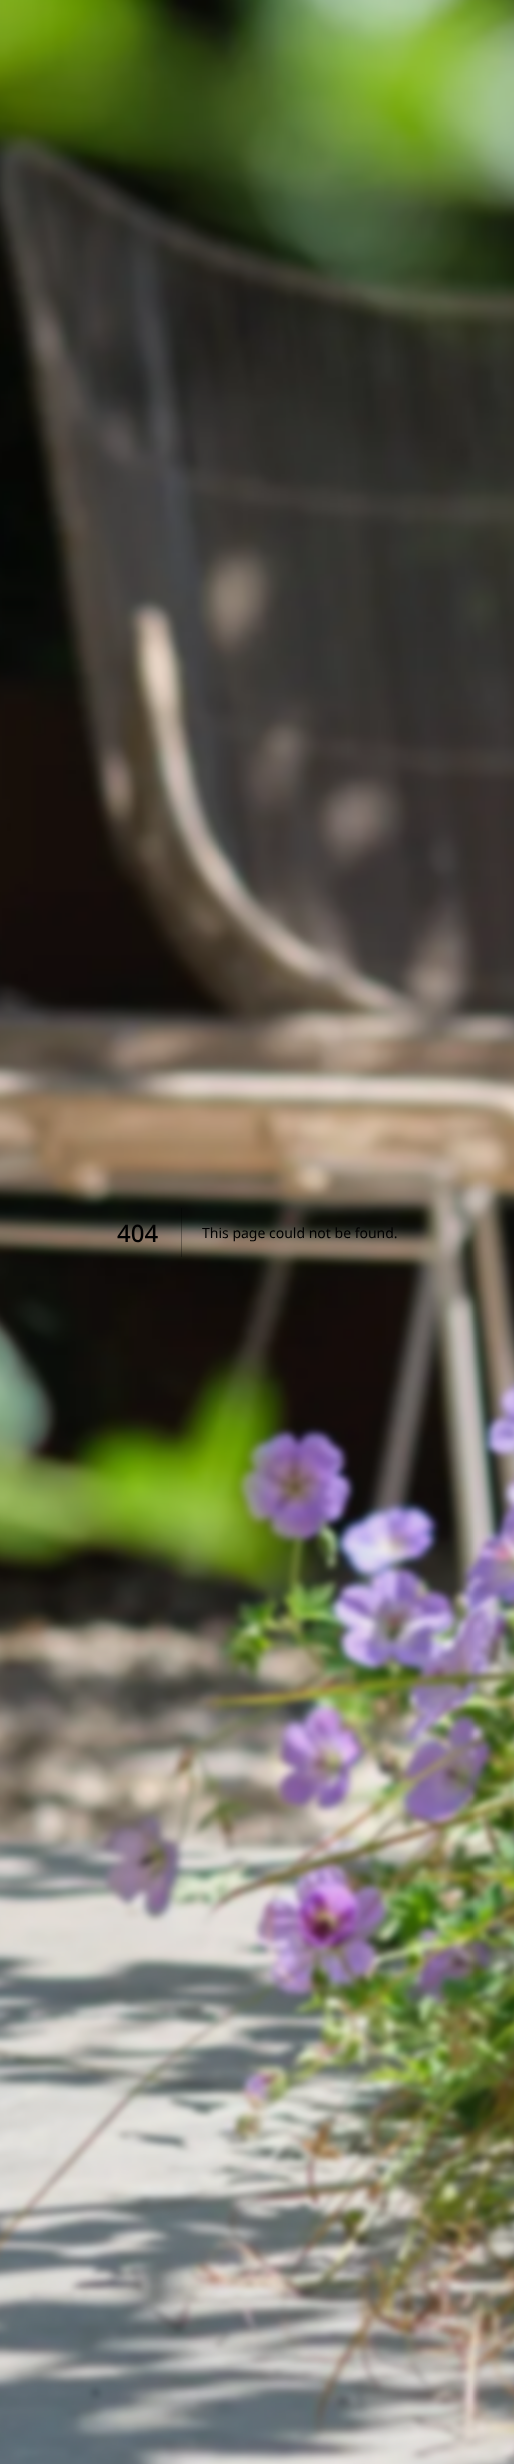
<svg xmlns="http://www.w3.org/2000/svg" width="514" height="2464">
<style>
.a{font:500 24px Noto Sans;fill:#000}
.b{font:14px Noto Sans;fill:#000}
</style>
<rect width="100%" height="100%" fill="#fff"/>
<image href="1.png" x="0" y="0" width="514" height="2464"/>
<path fill="#0000004d" d="M181 1208h1v49H181z"/>
<text class="a" x="117" y="1242">404</text>
<text class="b" x="202" y="1238">This page could not be found.</text>
</svg>
